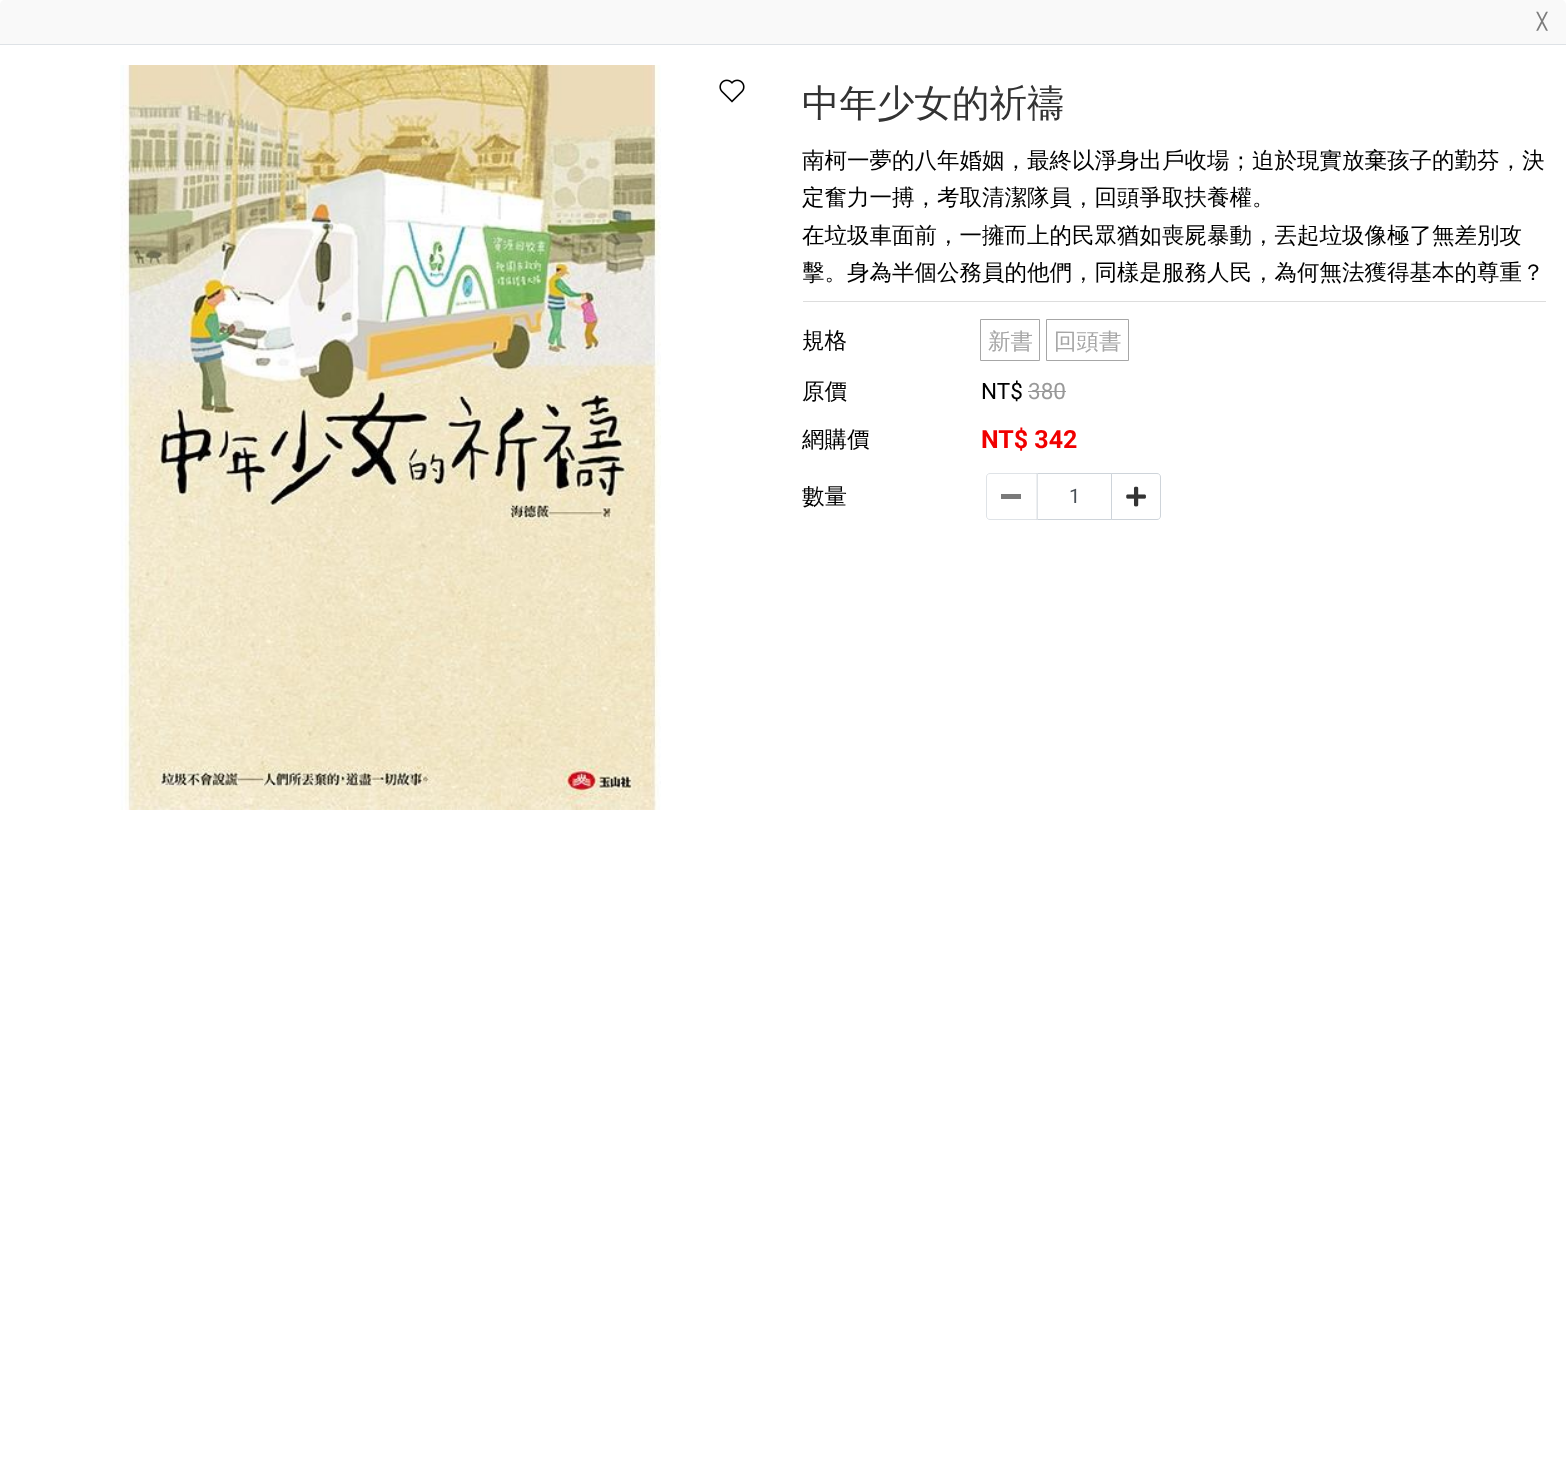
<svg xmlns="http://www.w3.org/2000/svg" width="1566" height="1481">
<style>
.a{font:bold 16px DejaVu Sans;fill:#7d7d7d}
.b{font:500 37.5px WenQuanYi Zen Hei;fill:#333}
.c{font:500 22.5px WenQuanYi Zen Hei;fill:#000}
.d{font:500 22.5px WenQuanYi Zen Hei;fill:#a6a6a6}
.e{font:22.5px Roboto;fill:#000}
.f{font:22.5px Roboto;fill:#999}
.g{font:bold 25px Roboto;fill:#f00000}
.h{font:20px Roboto;fill:#495057}
</style>
<rect width="100%" height="100%" fill="#fff"/>
<path fill="#f9f9f9" d="M5 0h1556c3 0 5 2 5 5v39h-1566v-39c0-3 2-5 5-5z"/>
<path fill="#dee2e6" d="M0 44h1566v1H0z"/>
<image href="1.png" x="120" y="65" width="541" height="745"/>
<image href="2.png" x="719" y="79" width="26" height="24"/>
<path fill="#ddd" d="M803 301h743v1H803z"/>
<path fill="none" stroke="#a6a6a6" d="M980.5 319.5h59v41H980.5z"/>
<path fill="none" stroke="#a6a6a6" d="M1046.5 319.5h82v41H1046.5z"/>
<path fill="#999" d="M1028 391h38v1H1028z"/>
<path fill="none" stroke="#ced4da" d="M1036.5 473.5h76v46H1036.5z"/>
<path fill="#ffffffa6" d="M990 473h48v47h-48c-2 0-4-2-4-4v-39c0-2 2-4 4-4z"/>
<path fill="none" stroke="#ced4daa6" d="M990 473.5h47.5v46h-47.5c-2 0-3.5-1.5-3.5-3.5v-39c0-2 1.5-3.5 3.5-3.5z"/>
<path fill="#7a7a7a" d="M1001 494h20v5H1001z"/>
<path fill="#fff" stroke="#ced4da" d="M1111.5 473.5h45.5c2 0 3.5 1.5 3.5 3.5v39c0 2-1.5 3.5-3.5 3.5h-45.5z"/>
<image href="3.png" x="1126" y="486" width="20" height="21"/>
<text class="a" x="1537" y="27">╳</text>
<text class="b" x="802" y="116">中年少女的祈禱</text>
<text class="c" x="802" y="168">南柯一夢的八年婚姻，最終以淨身出戶收場；迫於現實放棄孩子的勤芬，決</text>
<text class="c" x="802" y="205">定奮力一搏，考取清潔隊員，回頭爭取扶養權。</text>
<text class="c" x="802" y="243">在垃圾車面前，一擁而上的民眾猶如喪屍暴動，丟起垃圾像極了無差別攻</text>
<text class="c" x="802" y="280">擊。身為半個公務員的他們，同樣是服務人民，為何無法獲得基本的尊重？</text>
<text class="c" x="802" y="348">規格</text>
<text class="d" x="988" y="349">新書</text>
<text class="d" x="1054" y="349">回頭書</text>
<text class="c" x="802" y="399">原價</text>
<text class="e" x="981" y="399">NT$</text>
<text class="f" x="1028" y="399">380</text>
<text class="c" x="802" y="447">網購價</text>
<text class="g" x="981" y="448">NT$ 342</text>
<text class="c" x="802" y="504">數量</text>
<text class="h" x="1069" y="503">1</text>
</svg>
